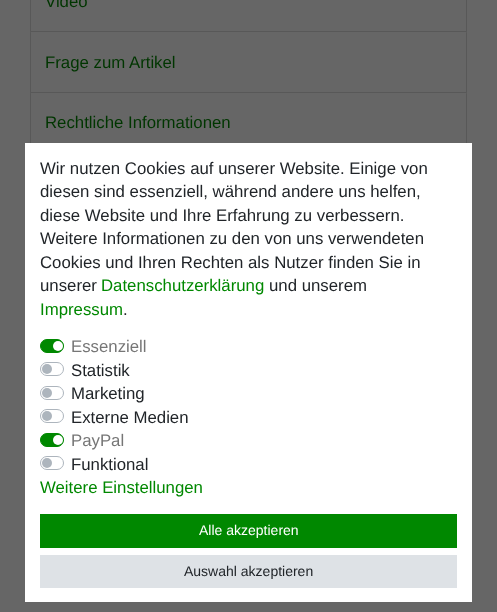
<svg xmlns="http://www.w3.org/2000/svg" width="497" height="612">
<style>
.a{font:16.8px Liberation Sans;fill:#003600}
.b{font:16.8px Liberation Sans;fill:#212529}
.c{font:16.8px Liberation Sans;fill:#080}
.d{font:16.8px Liberation Sans;fill:#767676}
.e{font:14px Liberation Sans;fill:#fff}
.f{font:14px Liberation Sans;fill:#212529}
</style>
<rect width="100%" height="100%" fill="#666"/>
<path fill="none" stroke="#585858" d="M30.5 -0.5h436v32H30.5z"/>
<path fill="none" stroke="#585858" d="M31.5 31.5h434c.5 0 1 .5 1 1v60h-436v-60c0-.5 .5-1 1-1z"/>
<path fill="none" stroke="#585858" d="M31.5 92.5h434c.5 0 1 .5 1 1v60h-436v-60c0-.5 .5-1 1-1z"/>
<path fill="#fff" d="M25 143h447v459H25z"/>
<rect fill="#080" stroke="#080" x="40.5" y="339.5" width="23" height="13" rx="6.5"/>
<circle fill="#fff" cx="58" cy="346" r="5"/>
<rect fill="none" stroke="#adb5bd" x="40.5" y="362.5" width="23" height="13" rx="6.5"/>
<circle fill="#adb5bd" cx="47" cy="369" r="5"/>
<rect fill="none" stroke="#adb5bd" x="40.5" y="386.5" width="23" height="13" rx="6.5"/>
<circle fill="#adb5bd" cx="47" cy="393" r="5"/>
<rect fill="none" stroke="#adb5bd" x="40.5" y="409.5" width="23" height="13" rx="6.5"/>
<circle fill="#adb5bd" cx="47" cy="416" r="5"/>
<rect fill="#080" stroke="#080" x="40.5" y="433.5" width="23" height="13" rx="6.5"/>
<circle fill="#fff" cx="58" cy="440" r="5"/>
<rect fill="none" stroke="#adb5bd" x="40.5" y="456.5" width="23" height="13" rx="6.5"/>
<circle fill="#adb5bd" cx="47" cy="463" r="5"/>
<path fill="#080" d="M40 514h417v34H40z"/>
<path fill="#dee2e6" d="M40 555h417v33H40z"/>
<text class="a" x="45" y="7">Video</text>
<text class="a" x="45" y="68">Frage zum Artikel</text>
<text class="a" x="45" y="128">Rechtliche Informationen</text>
<text class="b" x="40" y="174">Wir nutzen Cookies auf unserer Website. Einige von</text>
<text class="b" x="40" y="197">diesen sind essenziell, während andere uns helfen,</text>
<text class="b" x="40" y="221">diese Website und Ihre Erfahrung zu verbessern.</text>
<text class="b" x="40" y="244">Weitere Informationen zu den von uns verwendeten</text>
<text class="b" x="40" y="268">Cookies und Ihren Rechten als Nutzer finden Sie in</text>
<text class="b" x="40" y="291">unserer</text>
<text class="c" x="101" y="291">Datenschutzerklärung</text>
<text class="b" x="269" y="291">und unserem</text>
<text class="c" x="40" y="315">Impressum</text>
<text class="b" x="123" y="315">.</text>
<text class="d" x="71" y="352">Essenziell</text>
<text class="b" x="71" y="376">Statistik</text>
<text class="b" x="71" y="399">Marketing</text>
<text class="b" x="71" y="423">Externe Medien</text>
<text class="d" x="71" y="446">PayPal</text>
<text class="b" x="71" y="470">Funktional</text>
<text class="c" x="40" y="493">Weitere Einstellungen</text>
<text class="e" x="199" y="535">Alle akzeptieren</text>
<text class="f" x="184" y="576">Auswahl akzeptieren</text>
</svg>
